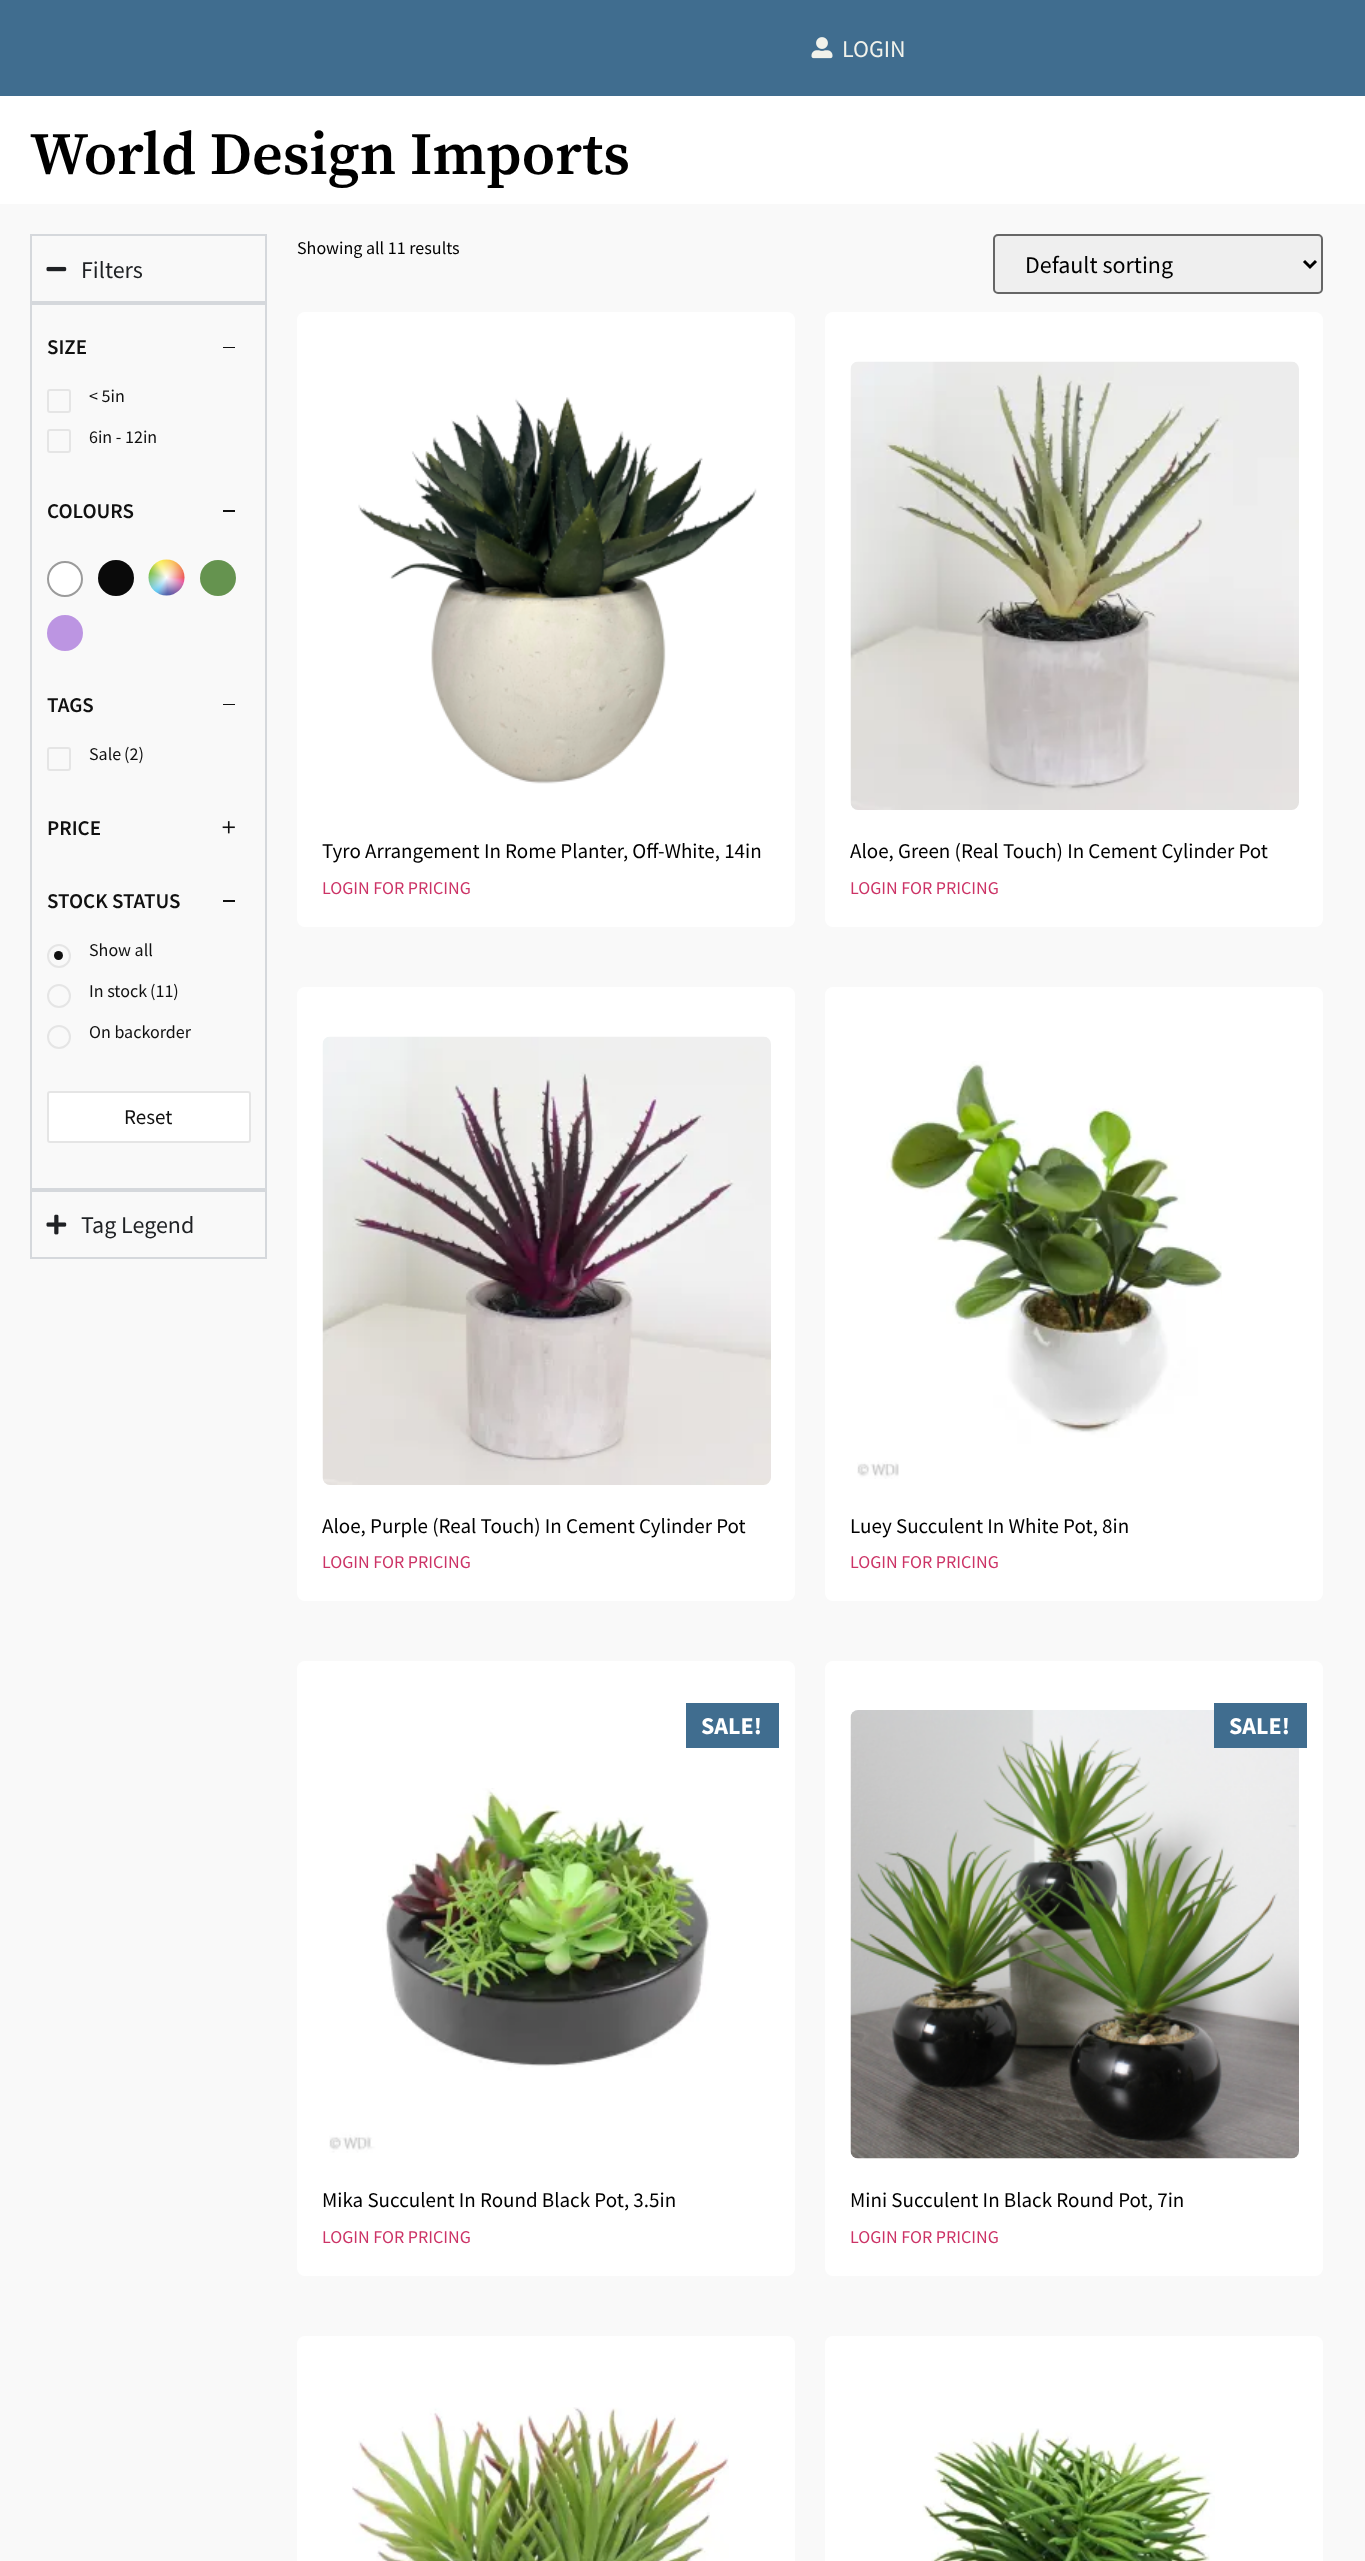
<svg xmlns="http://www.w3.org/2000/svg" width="1365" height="2561">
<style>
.a{font:24px Source Sans Pro;fill:#f1f2eb}
.b{font:600 60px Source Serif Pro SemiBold;fill:#000}
.c{font:24px Source Sans Pro;fill:#1f2124}
.d{font:600 21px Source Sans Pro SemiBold;fill:#111}
.e{font:18px Source Sans Pro;fill:#111}
.f{font:21px Source Sans Pro;fill:#111}
.g{font:18px Source Sans Pro;fill:#000}
.h{font:24px Source Sans Pro;fill:#000}
.i{font:21px Source Sans Pro;fill:#000}
.j{font:18px Source Sans Pro;fill:#c36}
.k{font:bold 24px Source Sans Pro;fill:#fff}
</style>
<rect width="100%" height="100%" fill="#f9f9f9"/>
<path fill="#406d8f" d="M0 0h1365v96H0z"/>
<image href="1.png" x="811" y="37" width="22" height="22"/>
<path fill="#fff" d="M0 96h1365v108H0z"/>
<path fill="none" stroke="#d5d8dc" stroke-width="2" d="M31 235h235v67H31z"/>
<image href="2.png" x="46" y="266" width="21" height="6"/>
<path fill="none" stroke="#d5d8dc" stroke-width="2" d="M31 304h235v885H31z"/>
<path fill="#111" d="M223 347h12v1H223z"/>
<rect fill="none" stroke="#e5e5e5" stroke-width="2" x="48" y="390" width="22" height="22" rx="2"/>
<rect fill="none" stroke="#e5e5e5" stroke-width="2" x="48" y="430" width="22" height="22" rx="2"/>
<path fill="#111" d="M223 510h12v2H223z"/>
<circle fill="#fff" stroke="#9b9b9b" stroke-width="2" cx="65" cy="579" r="17"/>
<circle fill="#0a0a0a" cx="116" cy="578" r="18"/>
<image href="3.png" x="148" y="559" width="37" height="37"/>
<circle fill="#65934f" cx="218" cy="578" r="18"/>
<circle fill="#bc95e2" cx="65" cy="633" r="18"/>
<path fill="#111" d="M223 704h12v1H223z"/>
<rect fill="none" stroke="#e5e5e5" stroke-width="2" x="48" y="748" width="22" height="22" rx="2"/>
<image href="4.png" x="222" y="821" width="13" height="13"/>
<path fill="#111" d="M223 900h12v2H223z"/>
<circle fill="none" stroke="#e5e5e5" stroke-width="2" cx="59" cy="956" r="11"/>
<circle fill="#111" cx="58.5" cy="955.5" r="4.5"/>
<circle fill="none" stroke="#e5e5e5" stroke-width="2" cx="59" cy="996" r="11"/>
<circle fill="none" stroke="#e5e5e5" stroke-width="2" cx="59" cy="1037" r="11"/>
<rect fill="#fff" stroke="#e5e5e5" stroke-width="2" x="48" y="1092" width="202" height="50" rx="2"/>
<path fill="none" stroke="#d5d8dc" stroke-width="2" d="M31 1191h235v67H31z"/>
<image href="5.png" x="46" y="1214" width="21" height="21"/>
<rect fill="#efefef" stroke="#666" stroke-width="2" x="994" y="235" width="328" height="58" rx="4"/>
<path fill="none" stroke="#000" stroke-width="3" d="M1304 261l6 6l6-6"/>
<rect fill="#fff" x="297" y="312" width="498" height="615" rx="8"/>
<image href="6.png" x="358" y="397" width="399" height="387"/>
<rect fill="#fff" x="825" y="312" width="498" height="615" rx="8"/>
<image href="7.png" x="850" y="361" width="449" height="449"/>
<rect fill="#fff" x="297" y="987" width="498" height="614" rx="8"/>
<image href="8.png" x="322" y="1036" width="449" height="449"/>
<rect fill="#fff" x="825" y="987" width="498" height="614" rx="8"/>
<image href="9.png" x="857" y="1061" width="365" height="418"/>
<rect fill="#fff" x="297" y="1661" width="498" height="615" rx="8"/>
<path fill="#406d8f" d="M686 1703h93v45H686z"/>
<image href="10.png" x="329" y="1788" width="382" height="365"/>
<rect fill="#fff" x="825" y="1661" width="498" height="615" rx="8"/>
<image href="11.png" x="850" y="1710" width="449" height="449"/>
<path fill="#406d8f" d="M1214 1703h93v45H1214z"/>
<rect fill="#fff" x="297" y="2336" width="498" height="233" rx="8"/>
<image href="12.png" x="352" y="2407" width="377" height="154"/>
<rect fill="#fff" x="825" y="2336" width="498" height="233" rx="8"/>
<image href="13.png" x="922" y="2428" width="293" height="133"/>
<text class="a" x="842" y="57">LOGIN</text>
<text class="b" x="30" y="174">World Design Imports</text>
<text class="c" x="81" y="278">Filters</text>
<text class="d" x="47" y="354">SIZE</text>
<text class="e" x="89" y="402">&lt; 5in</text>
<text class="e" x="89" y="443">6in - 12in</text>
<text class="d" x="47" y="518">COLOURS</text>
<text class="d" x="47" y="712">TAGS</text>
<text class="e" x="89" y="760">Sale</text>
<text class="e" x="124" y="760">(2)</text>
<text class="d" x="47" y="835">PRICE</text>
<text class="d" x="47" y="908">STOCK STATUS</text>
<text class="e" x="89" y="956">Show all</text>
<text class="e" x="89" y="997">In stock</text>
<text class="e" x="150" y="997">(11)</text>
<text class="e" x="89" y="1038">On backorder</text>
<text class="f" x="124" y="1124">Reset</text>
<text class="c" x="81" y="1233">Tag Legend</text>
<text class="g" x="297" y="254">Showing all 11 results</text>
<text class="h" x="1025" y="273">Default sorting</text>
<text class="i" x="322" y="858">Tyro Arrangement In Rome Planter, Off-White, 14in</text>
<text class="j" x="322" y="894">LOGIN FOR PRICING</text>
<text class="i" x="850" y="858">Aloe, Green (Real Touch) In Cement Cylinder Pot</text>
<text class="j" x="850" y="894">LOGIN FOR PRICING</text>
<text class="i" x="322" y="1533">Aloe, Purple (Real Touch) In Cement Cylinder Pot</text>
<text class="j" x="322" y="1568">LOGIN FOR PRICING</text>
<text class="i" x="850" y="1533">Luey Succulent In White Pot, 8in</text>
<text class="j" x="850" y="1568">LOGIN FOR PRICING</text>
<text class="k" x="701" y="1734">SALE!</text>
<text class="i" x="322" y="2207">Mika Succulent In Round Black Pot, 3.5in</text>
<text class="j" x="322" y="2243">LOGIN FOR PRICING</text>
<text class="k" x="1229" y="1734">SALE!</text>
<text class="i" x="850" y="2207">Mini Succulent In Black Round Pot, 7in</text>
<text class="j" x="850" y="2243">LOGIN FOR PRICING</text>
</svg>
